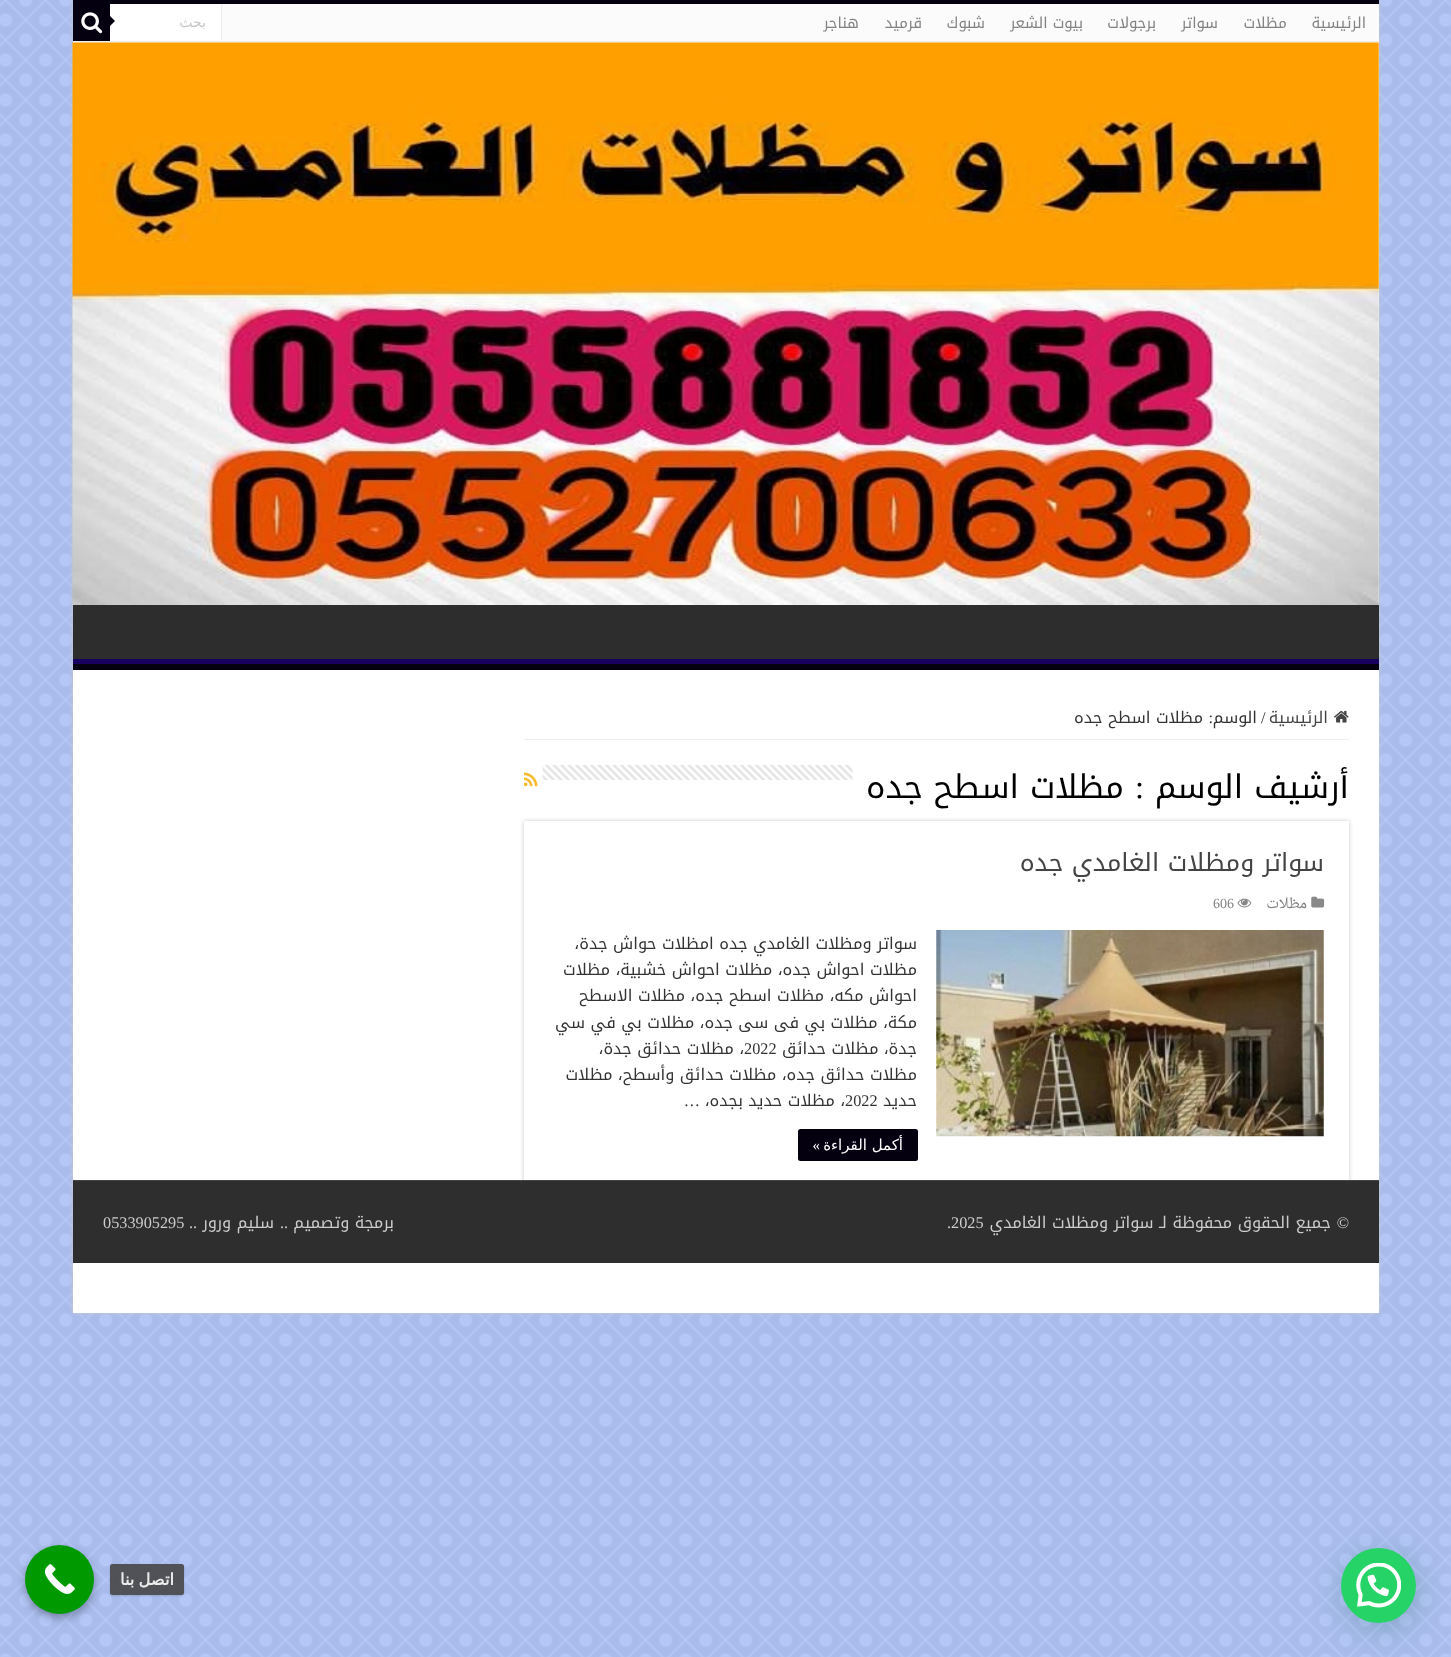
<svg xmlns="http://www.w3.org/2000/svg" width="1451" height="1657">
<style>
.a{font:15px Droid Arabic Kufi;direction:rtl;fill:#838383}
.b{font:14px DejaVu Sans;direction:rtl;fill:#c5c5c5}
.c{font:16.25px Droid Arabic Kufi;direction:rtl;fill:#444}
.d{font:16.25px Liberation Serif;fill:#333}
.e{font:16.25px Droid Arabic Kufi;direction:rtl;fill:#333}
.f{font:16.25px Liberation Serif;direction:rtl;fill:#333}
.g{font:32.5px Droid Arabic Kufi;direction:rtl;fill:#000}
.h{font:32.5px Liberation Serif;direction:rtl;fill:#000}
.i{font:25px Droid Arabic Kufi;direction:rtl;fill:#444}
.j{font:14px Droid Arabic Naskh;direction:rtl;fill:#838383}
.k{font:14px Liberation Serif;fill:#838383}
.l{font:15px DejaVu Sans;direction:rtl;fill:#fff}
.m{font:15px Liberation Serif;direction:rtl;fill:#fff}
.n{font:16.25px Liberation Serif;direction:rtl;fill:#ccc}
.o{font:16.25px Droid Arabic Kufi;direction:rtl;fill:#ccc}
.p{font:16.25px Liberation Serif;fill:#ccc}
.q{font:bold 16.25px DejaVu Sans;direction:rtl;fill:#ececec}
</style>
<defs>
<clipPath id="clip1"><path d="M73 605h1306v59H73z"/></clipPath>
<clipPath id="clip2"><path d="M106 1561h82v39h-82zm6.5 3h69c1.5 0 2.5 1 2.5 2.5v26c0 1.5-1 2.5-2.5 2.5h-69c-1.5 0-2.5-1-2.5-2.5v-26c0-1.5 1-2.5 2.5-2.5z" clip-rule="evenodd"/></clipPath>
</defs>
<rect width="100%" height="100%" fill="#9cb8ff"/>
<image href="1.png" x="0" y="0" width="1451" height="1657"/>
<path fill="#cacaca" filter="blur(2px)" d="M73 0h1306v1313H73z"/>
<path fill="#fff" d="M73 43h1306v1270H73z"/>
<path fill="#04000f" d="M73 0h1306v4H73z"/>
<path fill="#fbfbfb" d="M73 4h1306v39H73z"/>
<path fill="#ececec" d="M73 41h1306v1H73z"/>
<path fill="#fff" d="M110 4h111v36H110z"/>
<path fill="#ececec" d="M221 4h1v36H221z"/>
<path fill="#04000f" d="M73 4h37v37H73z"/>
<image href="2.png" x="81" y="12" width="22" height="22"/>
<path fill="#04000f" d="M110 26v-10l5 5z"/>
<image href="3.png" x="72" y="42" width="1307" height="563"/>
<path fill="#2d2d2d" d="M73 605h1306v54H73z"/>
<g clip-path="url(#clip1)">
<path fill="#180061" fill-rule="evenodd" d="M-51 481h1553v307h-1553zm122 117h1307c0 0 1 0 1 1v59c0 0-1 1-1 1h-1307c0 0-1-1-1-1v-59c0-1 1-1 1-1z"/>
</g>
<path fill="#04000f" d="M73 664h1306v6H73z"/>
<path fill="#eee" d="M524 739h825v1H524z"/>
<image href="4.png" x="1334" y="710" width="15" height="13"/>
<image href="5.png" x="542" y="765" width="311" height="15"/>
<image href="6.png" x="524" y="772" width="14" height="15"/>
<path fill="#cacaca" filter="blur(2px)" d="M524 821h825v378H524z"/>
<path fill="#fff" d="M524 821h825v359H524z"/>
<image href="7.png" x="1311" y="896" width="14" height="12"/>
<image href="8.png" x="1237" y="898" width="15" height="10"/>
<image href="9.png" x="936" y="930" width="388" height="207"/>
<rect fill="#04000f" x="798" y="1129" width="120" height="32" rx="2.5"/>
<path fill="#2e2e2e" d="M73 1181h1306v82H73z"/>
<path fill="#444" d="M73 1180h1306v1H73z"/>
<rect fill="#075e543d" filter="blur(15px)" x="1343" y="1555" width="75" height="75" rx="37.5"/>
<circle fill="#25d366" cx="1378.5" cy="1585.5" r="37.5"/>
<image href="10.png" x="1356" y="1563" width="45" height="45"/>
<rect fill="#0000004d" filter="blur(4px)" x="25" y="1549" width="69" height="69" rx="34.5"/>
<circle fill="#090" cx="59.5" cy="1579.5" r="34.5"/>
<image href="11.png" x="44" y="1564" width="31" height="30"/>
<g clip-path="url(#clip2)">
<rect fill="#00000026" filter="blur(1px)" x="110" y="1565" width="74" height="31" rx="2.5"/>
</g>
<rect fill="#464646e6" x="110" y="1564" width="74" height="31" rx="2.5"/>
<text class="a" x="1366" y="28">الرئيسية</text>
<text class="a" x="1287" y="28">مظلات</text>
<text class="a" x="1218" y="28">سواتر</text>
<text class="a" x="1156" y="28">برجولات</text>
<text class="a" x="1083" y="28">بيوت الشعر</text>
<text class="a" x="985" y="28">شبوك</text>
<text class="a" x="922" y="28">قرميد</text>
<text class="a" x="859" y="28">هناجر</text>
<text class="b" x="206" y="27">بحث</text>
<text class="c" x="1328" y="723">الرئيسية</text>
<text class="d" x="1261" y="723">/</text>
<text class="e" x="1257" y="723">الوسم</text>
<text class="f" x="1213" y="723">:</text>
<text class="e" x="1203" y="723">مظلات اسطح جده</text>
<text class="g" x="1349" y="798">أرشيف الوسم</text>
<text class="h" x="1144" y="798">:</text>
<text class="g" x="1124" y="798">مظلات اسطح جده</text>
<text class="i" x="1324" y="871">سواتر ومظلات الغامدي جده</text>
<text class="j" x="1307" y="908">مظلات</text>
<text class="k" x="1213" y="908">606</text>
<text class="e" x="917" y="949">سواتر ومظلات الغامدي جده امظلات حواش جدة،</text>
<text class="e" x="917" y="975">مظلات احواش جده، مظلات احواش خشبية، مظلات</text>
<text class="e" x="917" y="1001">احواش مكه، مظلات اسطح جده، مظلات الاسطح</text>
<text class="e" x="917" y="1028">مكة، مظلات بي فى سى جده، مظلات بي في سي</text>
<text class="e" x="917" y="1054">جدة، مظلات حدائق</text>
<text class="d" x="744" y="1054">2022</text>
<text class="e" x="744" y="1054">، مظلات حدائق جدة،</text>
<text class="e" x="917" y="1080">مظلات حدائق جده، مظلات حدائق وأسطح، مظلات</text>
<text class="e" x="917" y="1106">حديد</text>
<text class="d" x="845" y="1106">2022</text>
<text class="e" x="845" y="1106">، مظلات حديد بجده،</text>
<text class="f" x="700" y="1106">…</text>
<text class="l" x="903" y="1150">أكمل القراءة</text>
<text class="m" x="820" y="1150">»</text>
<text class="n" x="1349" y="1228">©</text>
<text class="o" x="1331" y="1228">جميع الحقوق محفوظة لـ سواتر ومظلات الغامدي</text>
<text class="p" x="947" y="1228">.2025</text>
<text class="o" x="394" y="1228">برمجة وتصميم</text>
<text class="n" x="288" y="1228">..</text>
<text class="o" x="274" y="1228">سليم ورور</text>
<text class="n" x="197" y="1228">..</text>
<text class="p" x="103" y="1228">0533905295</text>
<text class="q" x="174" y="1585" word-spacing="-1">اتصل بنا</text>
</svg>
